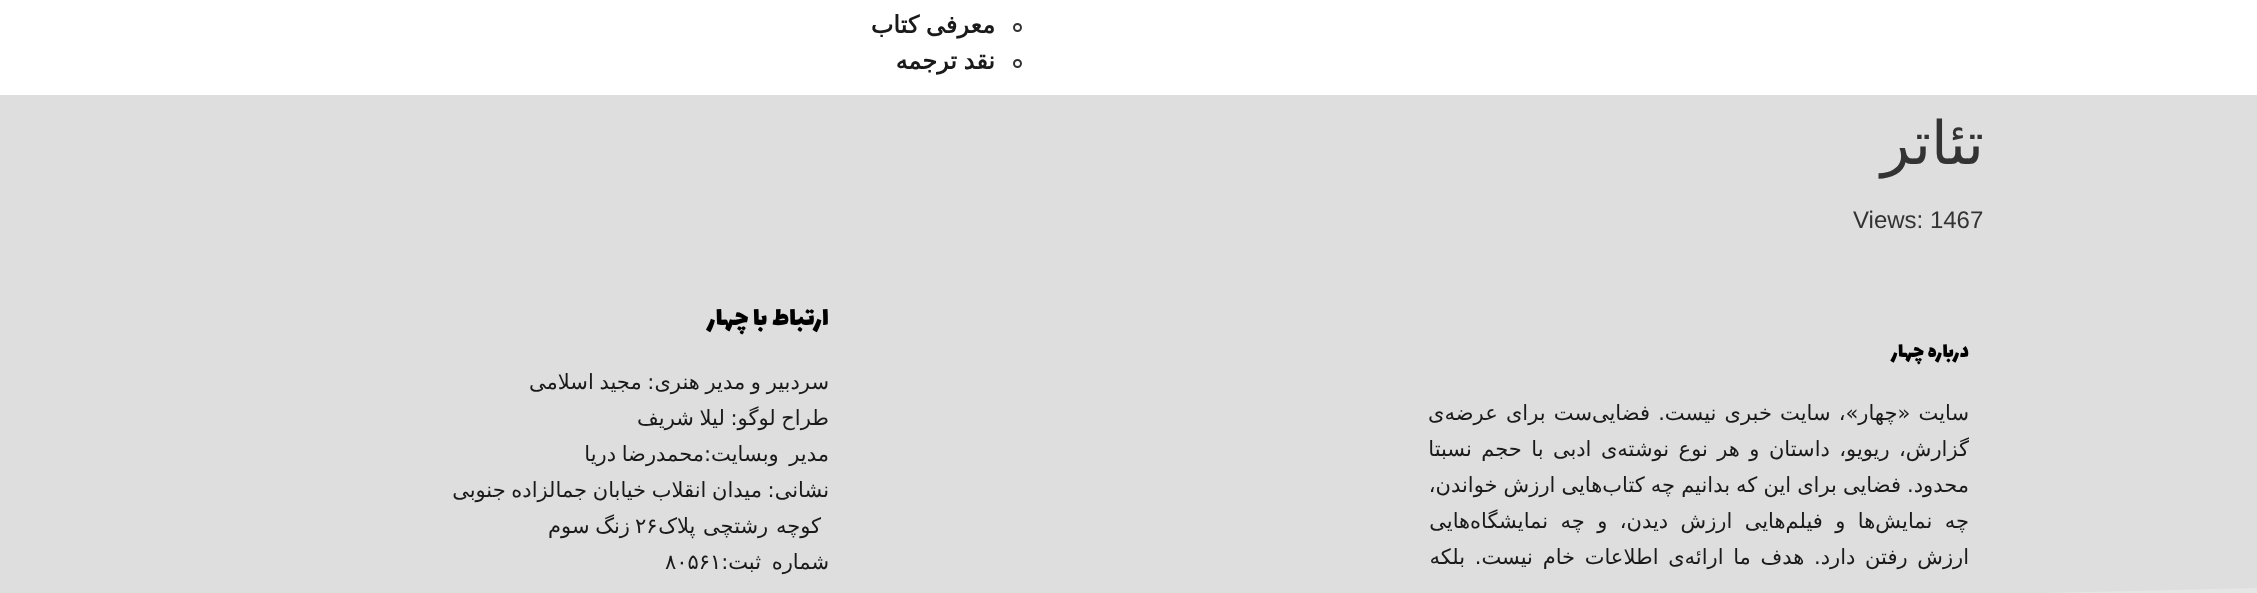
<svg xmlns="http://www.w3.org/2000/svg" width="2257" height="593">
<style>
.a{font:bold 24px DejaVu Sans;direction:rtl;fill:#1a1a1a}
.b{font:60px DejaVu Sans;direction:rtl;fill:#333}
.c{font:24px Liberation Sans;fill:#333}
.d{font:22.5px Lalezar;direction:rtl;fill:#000}
.e{font:21px DejaVu Sans;direction:rtl;fill:#1a1a1a}
.f{font:28.5px Lalezar;direction:rtl;fill:#000}
.g{font:21px DejaVu Sans;fill:#1a1a1a}
</style>
<rect width="100%" height="100%" fill="#dedede"/>
<path fill="#fff" d="M0 0h2257v95H0z"/>
<circle fill="none" stroke="#333" stroke-width="2" cx="1017.5" cy="27.5" r="3.5"/>
<circle fill="none" stroke="#333" stroke-width="2" cx="1017.5" cy="63.5" r="3.5"/>
<path fill="#e6e6e6" d="M-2 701h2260v-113l-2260 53z"/>
<text class="a" x="995" y="33" word-spacing="-1">معرفی کتاب</text>
<text class="a" x="995" y="69" word-spacing="-1">نقد ترجمه</text>
<text class="b" x="1984" y="164">تئاتر</text>
<text class="c" x="1853" y="228">Views: 1467</text>
<text class="d" x="1969" y="357">درباره چهار</text>
<text class="e" x="1969" y="420" word-spacing="1.5">سایت «چهار»، سایت خبری نیست. فضایی‌ست برای عرضه‌ی</text>
<text class="e" x="1969" y="456" word-spacing="2.75">گزارش‌، ریویو، داستان و هر نوع نوشته‌ی ادبی با حجم نسبتا</text>
<text class="e" x="1969" y="492" word-spacing="-0.6">محدود. فضایی برای این که بدانیم چه کتاب‌هایی ارزش خواندن،</text>
<text class="e" x="1969" y="528" word-spacing="5.75">چه نمایش‌ها و فیلم‌هایی ارزش دیدن، و چه نمایشگاه‌هایی</text>
<text class="e" x="1969" y="564" word-spacing="3">ارزش رفتن دارد. هدف ما ارائه‌ی اطلاعات خام نیست. بلکه</text>
<text class="f" x="829" y="325">ارتباط با چهار</text>
<text class="e" x="829" y="389" word-spacing="-1">سردبیر و مدیر هنری: مجید اسلامی</text>
<text class="e" x="829" y="425" word-spacing="-1">طراح لوگو: لیلا شریف</text>
<text class="e" x="829" y="461" word-spacing="4">مدیر وبسایت:</text>
<text class="e" x="704" y="461" word-spacing="-1">محمدرضا دریا</text>
<text class="e" x="829" y="497" word-spacing="-1">نشانی: میدان انقلاب خیابان جمالزاده جنوبی</text>
<text class="e" x="821" y="533" word-spacing="1">کوچه رشتچی پلاک</text>
<text class="g" x="635" y="533">۲۶</text>
<text class="e" x="630" y="533" word-spacing="-1">زنگ سوم</text>
<text class="e" x="829" y="569" word-spacing="4">شماره ثبت:</text>
<text class="g" x="665" y="569">۸۰۵۶۱</text>
</svg>
